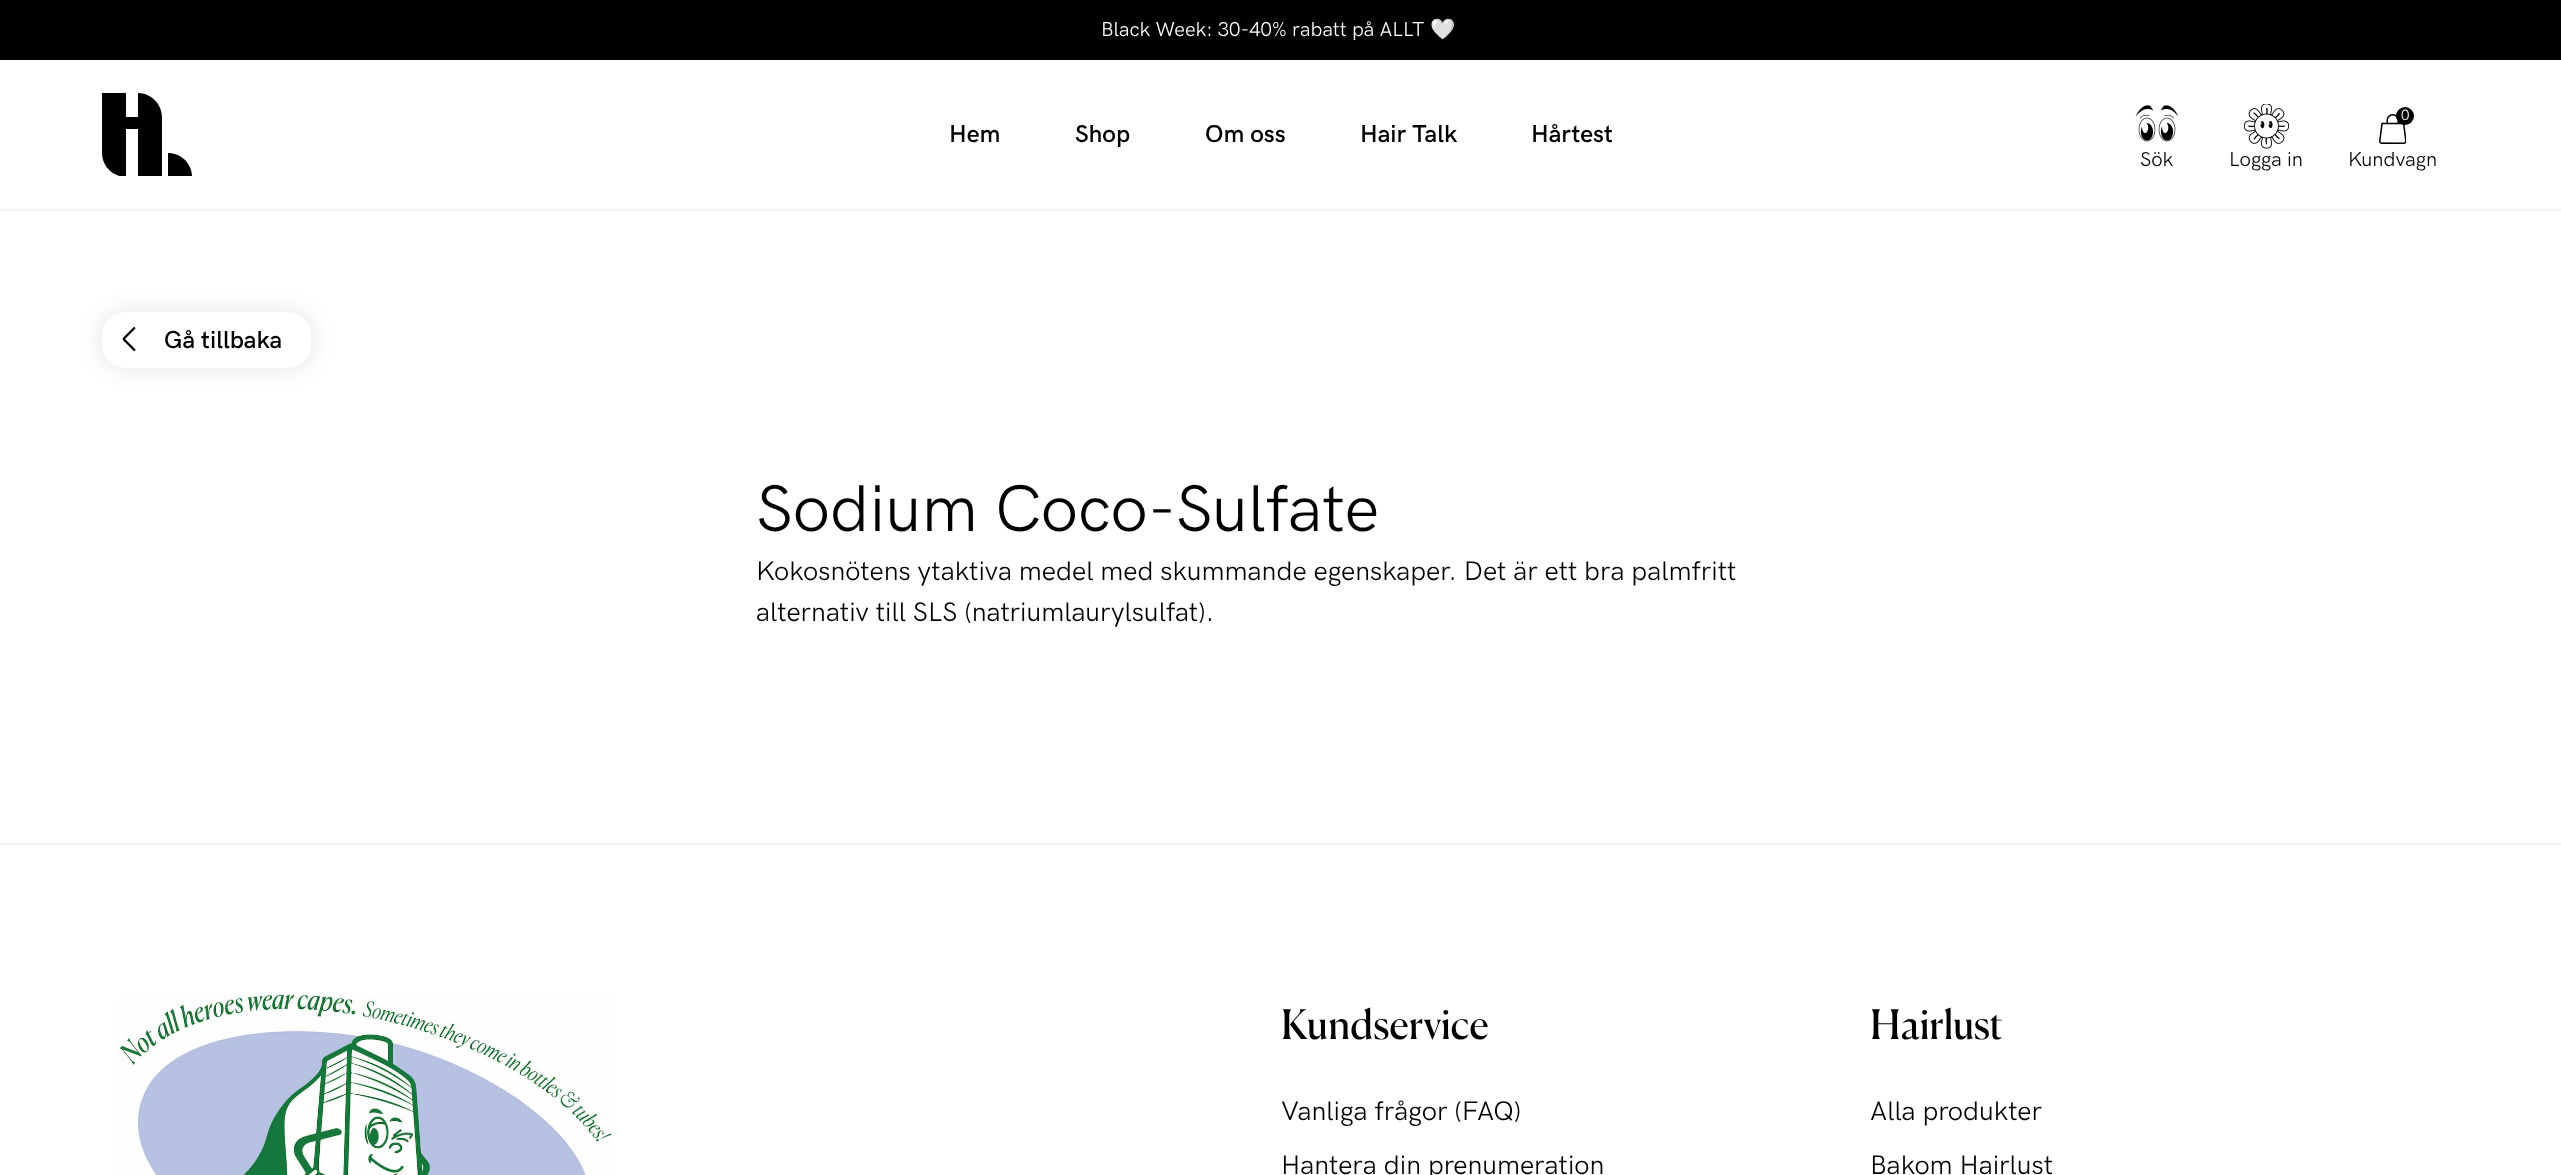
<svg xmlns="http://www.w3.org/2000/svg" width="2561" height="1175">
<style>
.a{font:20.25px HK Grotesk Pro;fill:#fff}
.b{font:20.25px Noto Color Emoji;fill:#fff}
.c{font:600 24.5px HK Grotesk Pro;fill:#000}
.d{font:20.25px HK Grotesk Pro;fill:#000}
.e{font:15px HK Grotesk Pro;fill:#fff}
.f{font:66.25px HK Grotesk Pro;fill:#000}
.g{font:27px HK Grotesk Pro;fill:#000}
.h{font:40.5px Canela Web;fill:#000}
</style>
<defs>
<clipPath id="clip1"><path d="M102 93h90v83H102z"/></clipPath>
</defs>
<rect width="100%" height="100%" fill="#fff"/>
<path fill="#000" d="M0 0h2561v60H0z"/>
<path fill="#f2f2f2" d="M0 209h2561v2H0z"/>
<g clip-path="url(#clip1)">
<path fill="#000" d="M138 93v24h-12v-24h-24v60c0 13 11 24 24 24v-48h12v48h24v-60c0-13-11-24-24-24z"/>
<path fill="#000" d="M168 153v24h24c0-13.5-11-24-24-24z"/>
</g>
<image href="1.png" x="2135" y="105" width="44" height="37"/>
<image href="2.png" x="2244" y="104" width="45" height="45"/>
<image href="3.png" x="2379" y="114" width="27" height="30"/>
<circle fill="#000" cx="2405" cy="116" r="9"/>
<rect fill="#0000001a" filter="blur(12px)" x="102" y="312" width="209" height="56" rx="24"/>
<rect fill="#fff" x="102" y="312" width="209" height="56" rx="24"/>
<image href="4.png" x="122" y="327" width="14" height="24"/>
<path fill="#f2f2f2" d="M0 843h2561v2H0z"/>
<image href="5.png" x="118" y="994" width="494" height="181"/>
<text class="a" x="1101" y="36">Black Week: 30-40% rabatt på ALLT</text>
<text class="b" x="1430" y="36">🤍</text>
<text class="c" x="949" y="142">Hem</text>
<text class="c" x="1075" y="142">Shop</text>
<text class="c" x="1205" y="142">Om oss</text>
<text class="c" x="1360" y="142">Hair Talk</text>
<text class="c" x="1531" y="142">Hårtest</text>
<text class="d" x="2140" y="166">Sök</text>
<text class="d" x="2229" y="166">Logga in</text>
<text class="e" x="2401" y="120">0</text>
<text class="d" x="2348" y="166">Kundvagn</text>
<text class="c" x="164" y="348">Gå tillbaka</text>
<text class="f" x="756" y="531">Sodium Coco-Sulfate</text>
<text class="g" x="756" y="580">Kokosnötens ytaktiva medel med skummande egenskaper. Det är ett bra palmfritt</text>
<text class="g" x="756" y="621">alternativ till SLS (natriumlaurylsulfat).</text>
<text class="h" x="1281" y="1039">Kundservice</text>
<text class="g" x="1281" y="1120">Vanliga frågor (FAQ)</text>
<text class="g" x="1281" y="1174">Hantera din prenumeration</text>
<text class="h" x="1870" y="1039">Hairlust</text>
<text class="g" x="1870" y="1120">Alla produkter</text>
<text class="g" x="1870" y="1174">Bakom Hairlust</text>
</svg>
